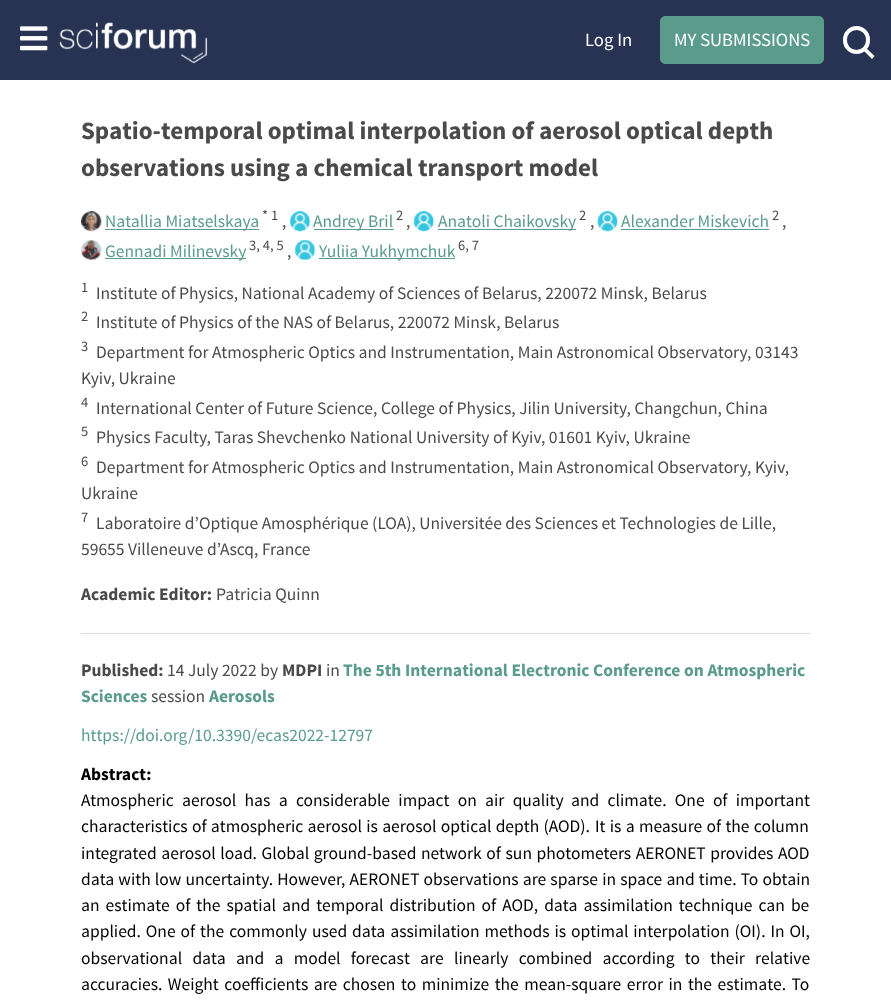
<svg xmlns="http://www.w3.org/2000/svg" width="891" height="1004">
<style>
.a{font:18.75px Source Sans Pro;fill:#fff}
.b{font:bold 25px Source Sans Pro;fill:#4a4a4a}
.c{font:17.5px Source Sans Pro;fill:#5a9b8b}
.d{font:14.5px Source Sans Pro;fill:#4a4a4a}
.e{font:17.5px Source Sans Pro;fill:#4a4a4a}
.f{font:bold 17.5px Source Sans Pro;fill:#4a4a4a}
.g{font:bold 17.5px Source Sans Pro;fill:#5a9b8b}
.h{font:bold 17.5px Source Sans Pro;fill:#000}
.i{font:17.5px Source Sans Pro;fill:#000}
</style>
<rect width="100%" height="100%" fill="#fff"/>
<path fill="#283353" d="M0 0h891v80H0z"/>
<image href="1.png" x="20" y="26" width="28" height="25"/>
<image href="2.png" x="59" y="22" width="149" height="42"/>
<rect fill="#5a9b8b" stroke="#5a9b8b" x="660.5" y="16.5" width="163" height="47" rx="4.5"/>
<rect fill="none" stroke="#fff" stroke-width="4" x="845" y="28" width="23" height="24" rx="11.5"/>
<path fill="#fff" d="M865.5 47.5l9 8.5l-2.5 3l-9-9z"/>
<image href="3.png" x="81" y="211" width="21" height="21"/>
<path fill="#5a9b8b" d="M105 229h154v1H105z"/>
<image href="4.png" x="289" y="211" width="22" height="21"/>
<path fill="#5a9b8b" d="M314 229h80v1H314z"/>
<image href="5.png" x="413" y="211" width="22" height="21"/>
<path fill="#5a9b8b" d="M438 229h138v1H438z"/>
<image href="6.png" x="597" y="211" width="21" height="21"/>
<path fill="#5a9b8b" d="M621 229h148v1H621z"/>
<image href="7.png" x="81" y="240" width="21" height="20"/>
<path fill="#5a9b8b" d="M105 258h141v1H105z"/>
<image href="8.png" x="294" y="239" width="22" height="21"/>
<path fill="#5a9b8b" d="M319 258h136v1H319z"/>
<path fill="#ddd" d="M81 633h729v1H81z"/>
<text class="a" x="585" y="46">Log In</text>
<text class="a" x="674" y="46">MY SUBMISSIONS</text>
<text class="b" x="81" y="139">Spatio-temporal optimal interpolation of aerosol optical depth</text>
<text class="b" x="81" y="176">observations using a chemical transport model</text>
<text class="c" x="105" y="227">Natallia Miatselskaya</text>
<text class="d" x="262" y="220">* 1</text>
<text class="e" x="282" y="227">,</text>
<text class="c" x="313" y="227">Andrey Bril</text>
<text class="d" x="396" y="220">2</text>
<text class="e" x="406" y="227">,</text>
<text class="c" x="438" y="227">Anatoli Chaikovsky</text>
<text class="d" x="579" y="220">2</text>
<text class="e" x="590" y="227">,</text>
<text class="c" x="621" y="227">Alexander Miskevich</text>
<text class="d" x="772" y="220">2</text>
<text class="e" x="782" y="227">,</text>
<text class="c" x="105" y="257">Gennadi Milinevsky</text>
<text class="d" x="249" y="250">3, 4, 5</text>
<text class="e" x="287" y="257">,</text>
<text class="c" x="319" y="257">Yuliia Yukhymchuk</text>
<text class="d" x="458" y="250">6, 7</text>
<text class="d" x="81" y="292">1</text>
<text class="e" x="96" y="299">Institute of Physics, National Academy of Sciences of Belarus, 220072 Minsk, Belarus</text>
<text class="d" x="81" y="321">2</text>
<text class="e" x="96" y="328">Institute of Physics of the NAS of Belarus, 220072 Minsk, Belarus</text>
<text class="d" x="81" y="351">3</text>
<text class="e" x="96" y="358">Department for Atmospheric Optics and Instrumentation, Main Astronomical Observatory, 03143</text>
<text class="e" x="81" y="384">Kyiv, Ukraine</text>
<text class="d" x="81" y="407">4</text>
<text class="e" x="96" y="414">International Center of Future Science, College of Physics, Jilin University, Changchun, China</text>
<text class="d" x="81" y="436">5</text>
<text class="e" x="96" y="443">Physics Faculty, Taras Shevchenko National University of Kyiv, 01601 Kyiv, Ukraine</text>
<text class="d" x="81" y="466">6</text>
<text class="e" x="96" y="473">Department for Atmospheric Optics and Instrumentation, Main Astronomical Observatory, Kyiv,</text>
<text class="e" x="81" y="499">Ukraine</text>
<text class="d" x="81" y="522">7</text>
<text class="e" x="96" y="529">Laboratoire d’Optique Amosphérique (LOA), Universitée des Sciences et Technologies de Lille,</text>
<text class="e" x="81" y="555">59655 Villeneuve d’Ascq, France</text>
<text class="f" x="81" y="600">Academic Editor:</text>
<text class="e" x="216" y="600">Patricia Quinn</text>
<text class="f" x="81" y="676">Published:</text>
<text class="e" x="167" y="676">14 July 2022 by</text>
<text class="f" x="282" y="676">MDPI</text>
<text class="e" x="326" y="676">in</text>
<text class="g" x="343" y="676">The 5th International Electronic Conference on Atmospheric</text>
<text class="g" x="81" y="702">Sciences</text>
<text class="e" x="151" y="702">session</text>
<text class="g" x="209" y="702">Aerosols</text>
<text class="c" x="81" y="741">https://doi.org/10.3390/ecas2022-12797</text>
<text class="h" x="81" y="780">Abstract:</text>
<text class="i" x="81" y="806" word-spacing="4.75">Atmospheric aerosol has a considerable impact on air quality</text>
<text class="i" x="571" y="806" word-spacing="4.75">and climate. One of important</text>
<text class="i" x="81" y="832" word-spacing="0.75">characteristics of atmospheric aerosol is aerosol optical depth (AOD).</text>
<text class="i" x="595" y="832" word-spacing="0.75">It is a measure of the column</text>
<text class="i" x="81" y="859" word-spacing="1.1">integrated aerosol load. Global ground-based network of sun photometers AERONET provides AOD</text>
<text class="i" x="81" y="885" word-spacing="0.6">data with low uncertainty. However, AERONET observations are sparse in space and time. To obtain</text>
<text class="i" x="81" y="911" word-spacing="2.5">an estimate of the spatial and temporal distribution of AOD, data assimilation technique can be</text>
<text class="i" x="81" y="937" word-spacing="1.4">applied. One of the commonly used data assimilation methods is optimal interpolation (OI). In OI,</text>
<text class="i" x="81" y="964" word-spacing="6.75">observational data and a model forecast are linearly combined according to their relative</text>
<text class="i" x="81" y="990" word-spacing="2">accuracies. Weight coefficients are chosen to minimize the mean-square error in the estimate. To</text>
</svg>
